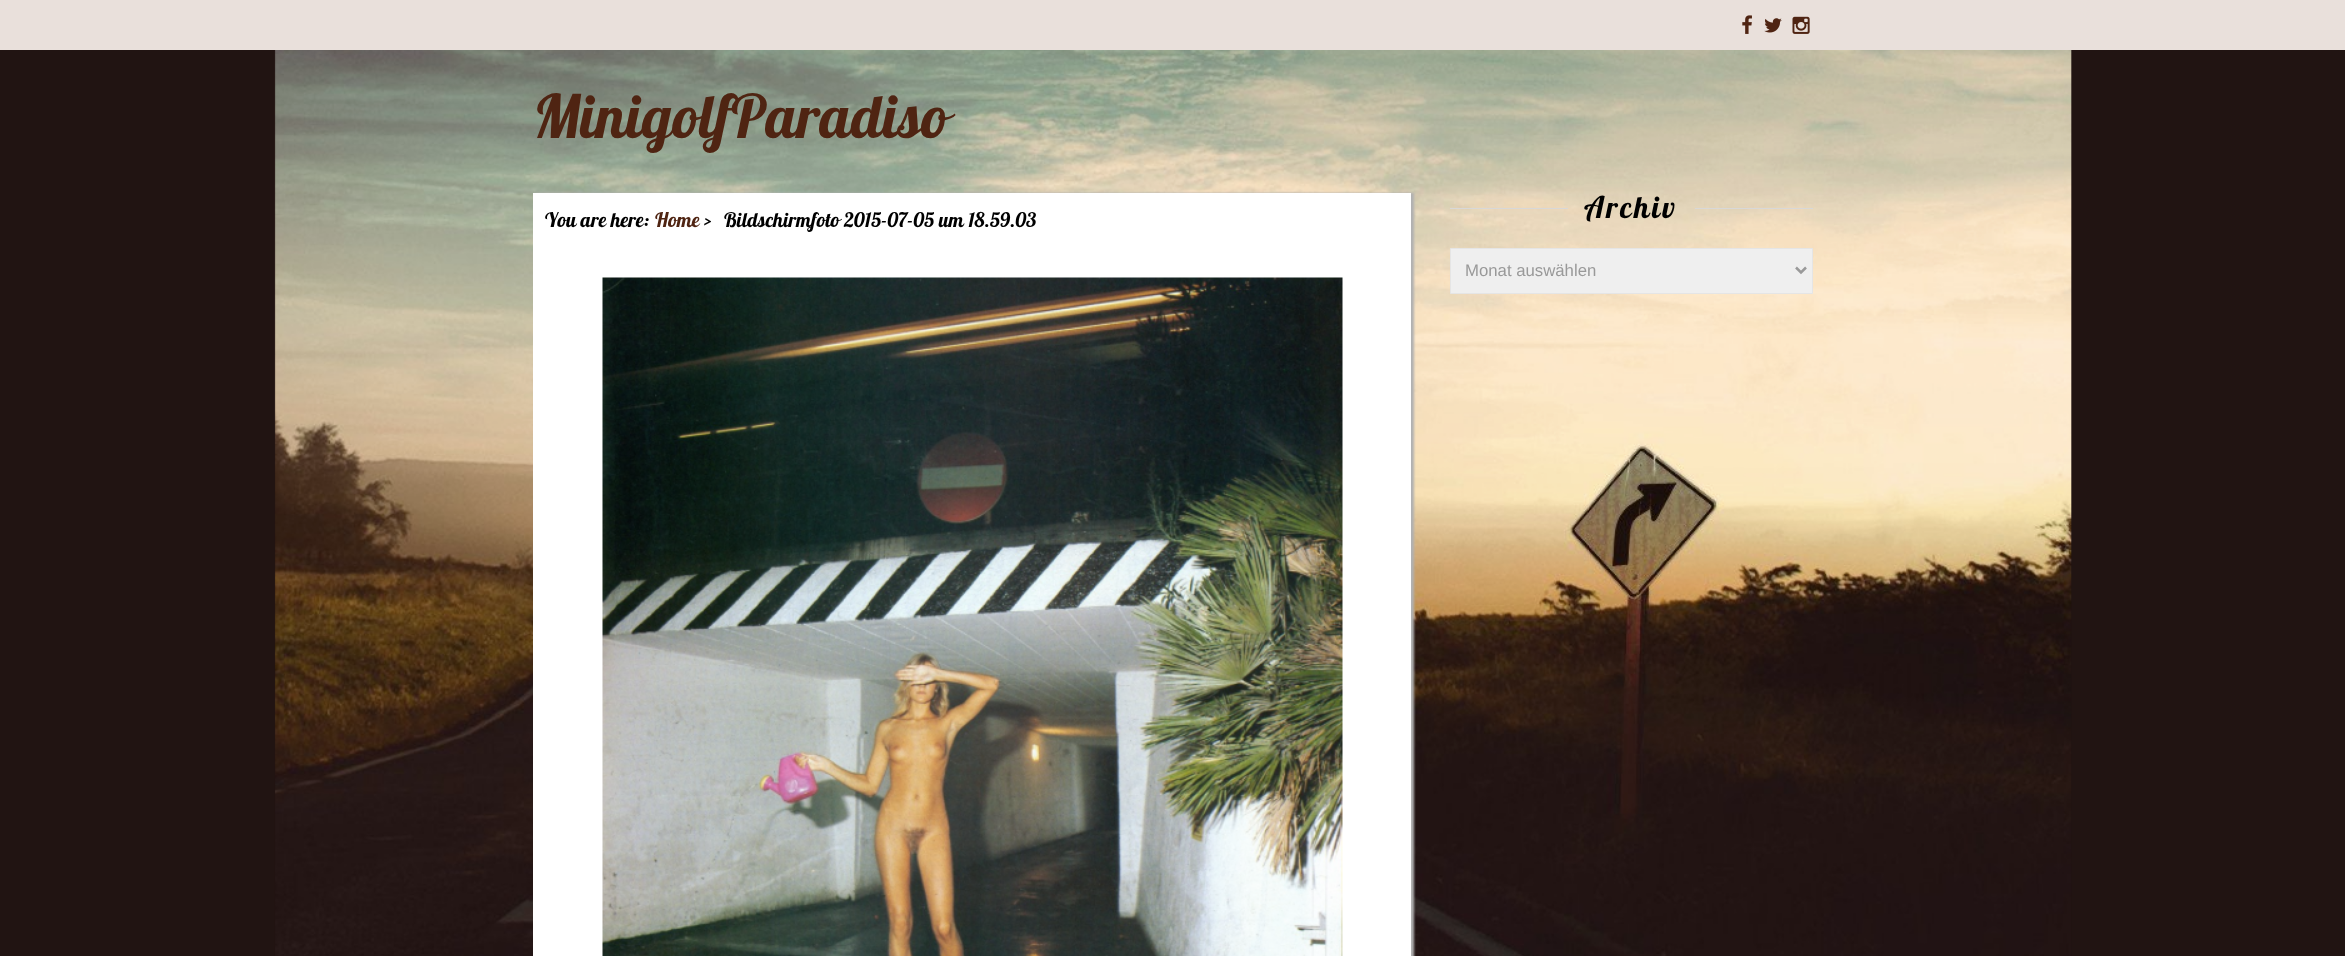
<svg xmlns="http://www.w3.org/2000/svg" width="2345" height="956">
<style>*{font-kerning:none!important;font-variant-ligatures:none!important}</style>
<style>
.a{font:60px Lobster;fill:#4f2412}
.b{font:20px Lobster;fill:#000}
.c{font:20px Lobster;fill:#4f2412}
.d{font:30px Lobster;letter-spacing:2.5px;fill:#000}
.e{font:16.75px Liberation Sans;fill:#999}
</style>
<rect width="100%" height="100%" fill="#211412"/>
<image href="1.png" x="274" y="50" width="1798" height="906"/>
<path fill="#e9e0db" d="M0 0h2345v50H0z"/>
<image href="2.png" x="1742" y="15" width="10" height="19"/>
<image href="3.png" x="1764" y="18" width="18" height="15"/>
<image href="4.png" x="1792" y="16" width="18" height="18"/>
<path fill="#b1b1b1" filter="blur(1px)" d="M535 193h879v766H535z"/>
<path fill="#fff" d="M533 193h878v763H533z"/>
<image href="5.png" x="602" y="277" width="741" height="679"/>
<path fill="#d8d8d8" d="M1450 208h118v1H1450z"/>
<path fill="#d8d8d8" d="M1695 208h118v1H1695z"/>
<path fill="#efefef" stroke="#e5e5e5" d="M1450.5 248.5h362v45H1450.5z"/>
<path fill="none" stroke="#999" stroke-width="2.5" d="M1796 267.5l5 5l5-5"/>
<text class="a" x="533" y="138">MinigolfParadiso</text>
<text class="b" x="545" y="227">You are here:</text>
<text class="c" x="655" y="227">Home</text>
<text class="b" x="704" y="227">&gt;</text>
<text class="b" x="724" y="227">Bildschirmfoto 2015-07-05 um 18.59.03</text>
<text class="d" x="1584" y="218">Archiv</text>
<text class="e" x="1465" y="276">Monat auswählen</text>
</svg>
